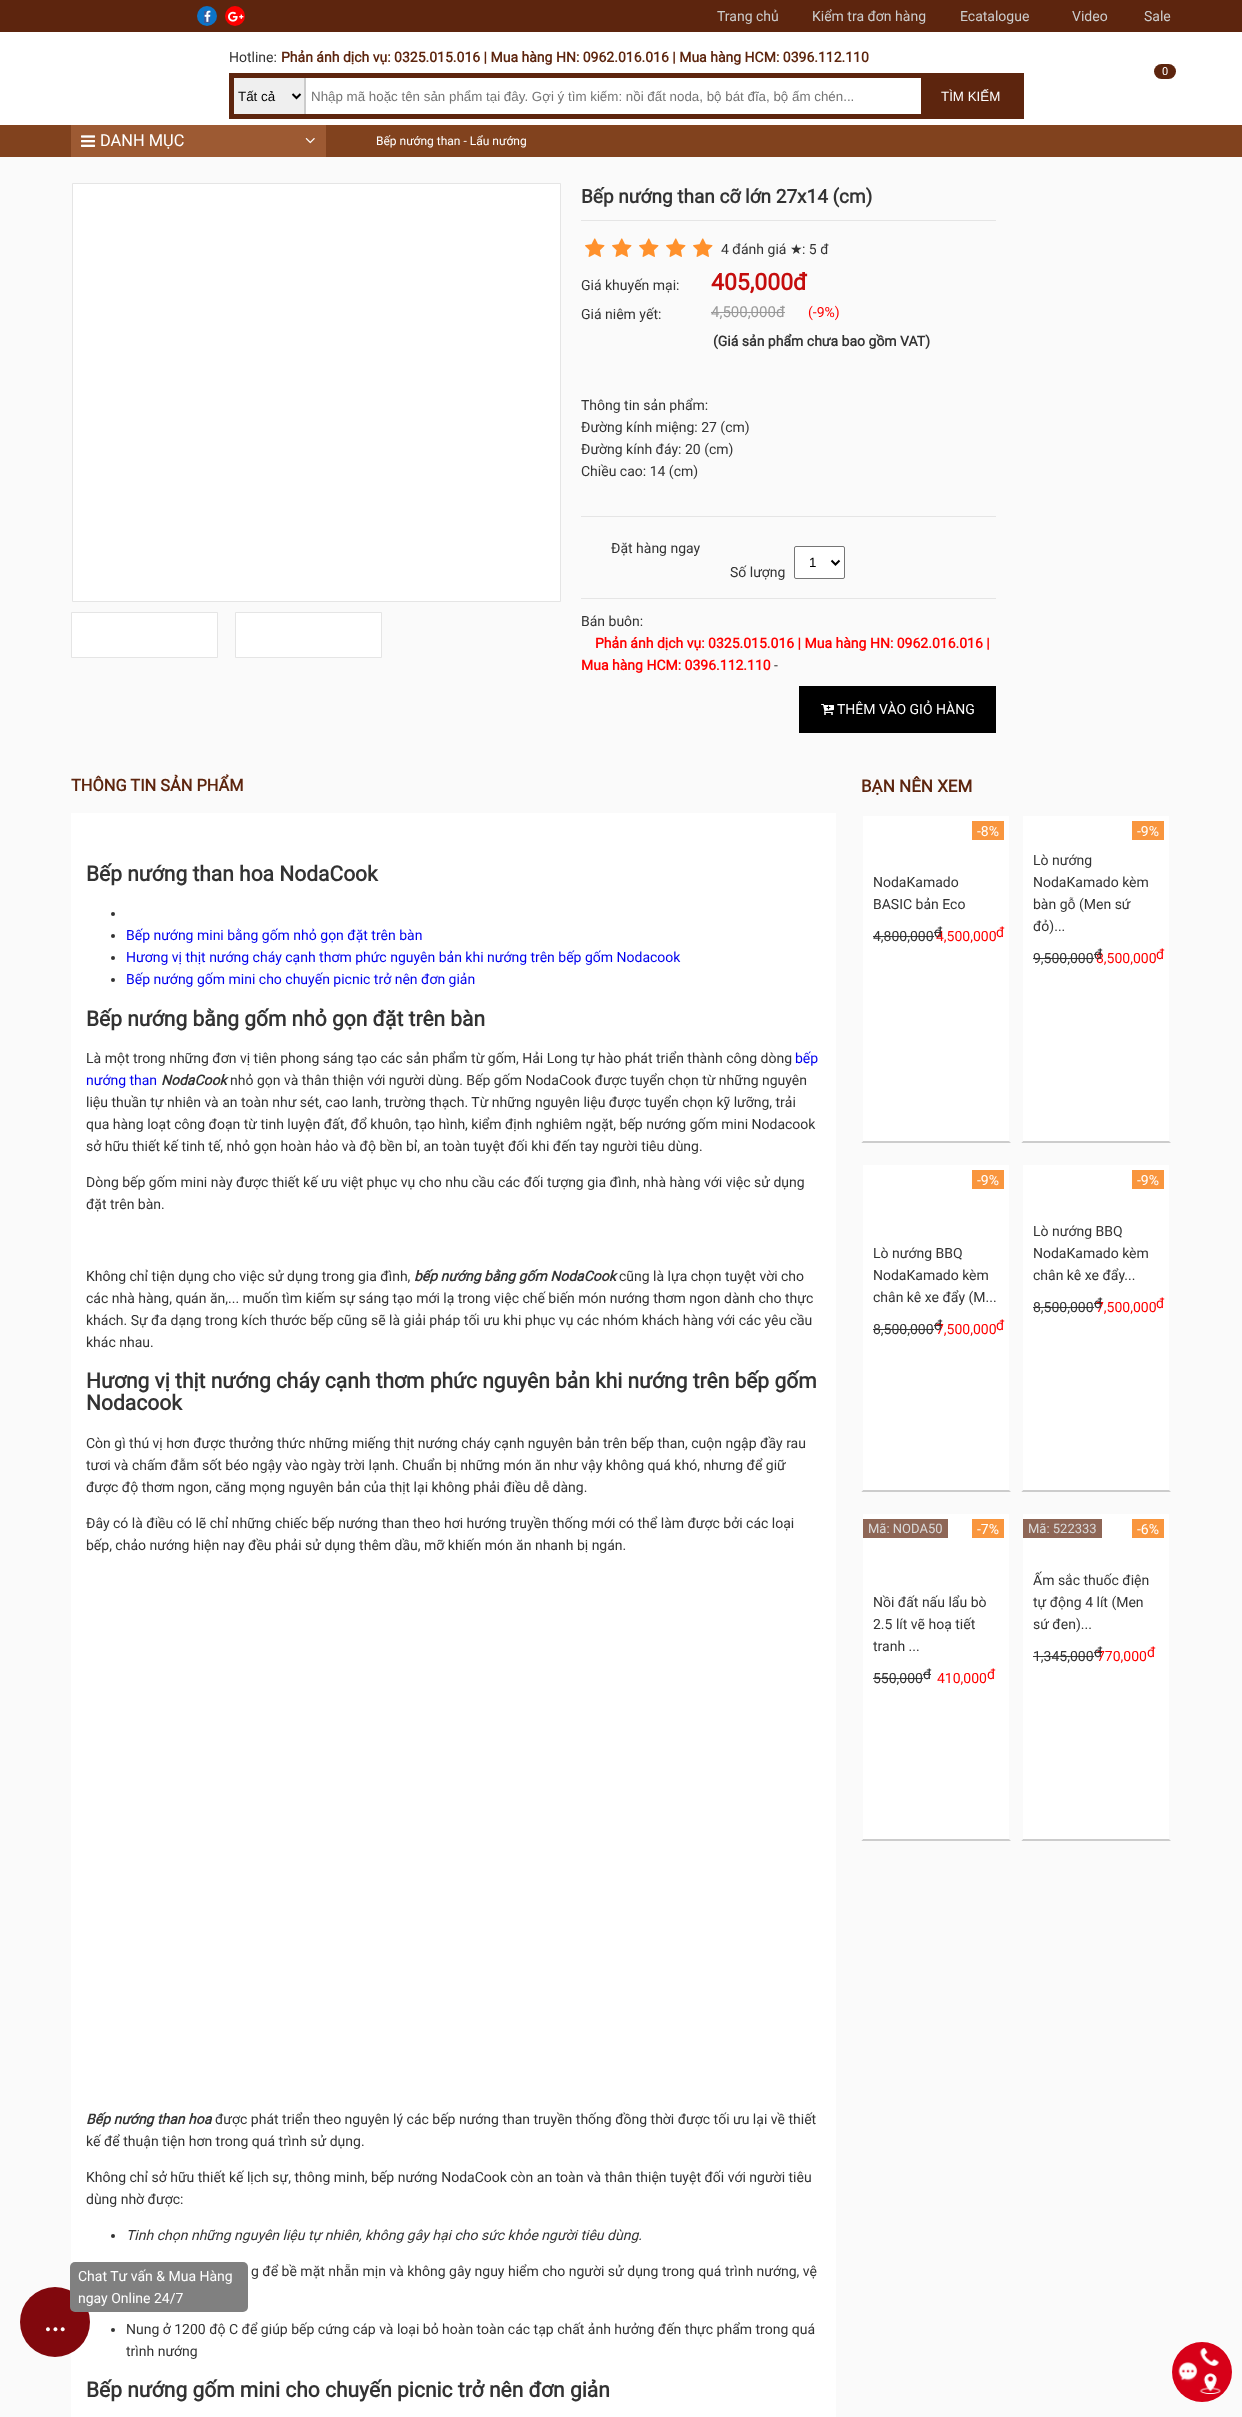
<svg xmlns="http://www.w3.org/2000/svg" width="1242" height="2417">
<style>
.a{font:14px Roboto;fill:#ccc}
.b{font:14px Roboto;fill:#333}
.c{font:bold 14px Roboto;fill:#5d250e}
.d{font:13.35px Liberation Sans;fill:#000}
.e{font:13.35px Liberation Sans;fill:#757575}
.f{font:13.35px Liberation Sans;fill:#fff}
.g{font:11px Roboto;fill:#fff}
.h{font:16.4px Roboto;fill:#fff}
.i{font:12px Roboto;fill:#fff}
.j{font:bold 19px Roboto;fill:#333}
.k{font:14px DejaVu Sans;fill:#333}
.l{font:bold 23px Roboto;fill:#c50d0d}
.m{font:15px Roboto;fill:#999}
.n{font:14px Roboto;fill:#f00}
.o{font:bold 14px Roboto;fill:#333}
.p{font:bold 14px Roboto;fill:#f00}
.q{font:14px Roboto;fill:#fff}
.r{font:bold 16.4px Roboto;fill:#5d250e}
.s{font:bold 21px Roboto;fill:#333}
.t{font:14px Roboto;fill:#00e}
.u{font:italic bold 14px Roboto;fill:#333}
.v{font:italic 14px Roboto;fill:#333}
.w{font:bold 17px Roboto;fill:#5d250e}
.x{font:13px Roboto;fill:#dbdbdb}
.y{font:bold 28px Roboto;fill:#fff}
</style>
<rect width="100%" height="100%" fill="#fff"/>
<path fill="#5d250e" d="M0 0h1242v32H0z"/>
<circle fill="#0d74c7" cx="207" cy="16" r="10"/>
<path fill="#3b5998" d="M204 11h6v12H204z"/>
<image href="1.png" x="204" y="10" width="7" height="12"/>
<circle fill="#f00" cx="235" cy="16" r="10"/>
<image href="2.png" x="228" y="11" width="16" height="11"/>
<path fill="#5d250e" d="M229 73h795v46H229z"/>
<path fill="#efefef" d="M234 78h70v36H234z"/>
<path fill="#ccc" d="M304 78h2v36H304z"/>
<path fill="none" stroke="#000" stroke-width="2" d="M292.5 94l4 4l4-4"/>
<path fill="#fff" d="M306 78h615v36H306z"/>
<rect fill="#5d250e" x="1154" y="64" width="22" height="15" rx="7.5"/>
<path fill="#fafafa" d="M0 157h1242v2260H0z"/>
<path fill="#81421e" d="M0 125h1242v32H0z"/>
<path fill="#9d5a33" d="M71 125h255v32H71z"/>
<image href="3.png" x="81" y="135" width="15" height="12"/>
<image href="4.png" x="305" y="138" width="10" height="6"/>
<path fill="#fff" stroke="#e5e5e5" d="M72.5 183.5h488v418H72.5z"/>
<path fill="#fff" stroke="#e5e5e5" d="M71.5 612.5h146v45H71.5z"/>
<path fill="#fff" stroke="#e5e5e5" d="M235.5 612.5h146v45H235.5z"/>
<path fill="#e5e5e5" d="M581 220h415v1H581z"/>
<image href="5.png" x="585" y="238" width="20" height="19"/>
<image href="5.png" x="612" y="238" width="20" height="19"/>
<image href="5.png" x="639" y="238" width="20" height="19"/>
<image href="5.png" x="666" y="238" width="20" height="19"/>
<image href="5.png" x="693" y="238" width="20" height="19"/>
<path fill="#999" d="M711 312h74v1H711z"/>
<path fill="#e5e5e5" d="M581 516h415v1H581z"/>
<path fill="#e5e5e5" d="M581 598h415v1H581z"/>
<rect fill="#fff" stroke="#767676" x="794.5" y="546.5" width="50" height="32" rx="1.5"/>
<path fill="none" stroke="#000" stroke-width="2" d="M831.5 560.5l4 4l4-4"/>
<path fill="#000" d="M799 686h197v47H799z"/>
<image href="6.png" x="821" y="704" width="13" height="11"/>
<path fill="#fff" d="M71 813h765v1604H71z"/>
<circle fill="#333" cx="113" cy="914" r="2"/>
<circle fill="#333" cx="113" cy="936" r="2"/>
<circle fill="#333" cx="113" cy="958" r="2"/>
<circle fill="#333" cx="113" cy="980" r="2"/>
<circle fill="#333" cx="113" cy="2236" r="2"/>
<circle fill="#333" cx="113" cy="2330" r="2"/>
<path fill="#fff" d="M861 816h150v327H861z"/>
<path fill="#fafafa" d="M1011 814v329l-2-2v-325z"/>
<path fill="#ccc" d="M1011 1143h-150l2-2h146z"/>
<path fill="#fafafa" d="M861 1143v-329l2 2v325z"/>
<path fill="#f9963e" d="M972 821h32v19H972z"/>
<path fill="#333" d="M873 936h61v1H873z"/>
<path fill="#fff" d="M1021 816h150v327H1021z"/>
<path fill="#fafafa" d="M1171 814v329l-2-2v-325z"/>
<path fill="#ccc" d="M1171 1143h-150l2-2h146z"/>
<path fill="#fafafa" d="M1021 1143v-329l2 2v325z"/>
<path fill="#f9963e" d="M1132 821h32v19H1132z"/>
<path fill="#333" d="M1033 958h61v1H1033z"/>
<path fill="#fff" d="M861 1165h150v327H861z"/>
<path fill="#fafafa" d="M1011 1163v329l-2-2v-325z"/>
<path fill="#ccc" d="M1011 1492h-150l2-2h146z"/>
<path fill="#fafafa" d="M861 1492v-329l2 2v325z"/>
<path fill="#f9963e" d="M972 1170h32v19H972z"/>
<path fill="#333" d="M873 1329h61v1H873z"/>
<path fill="#fff" d="M1021 1165h150v327H1021z"/>
<path fill="#fafafa" d="M1171 1163v329l-2-2v-325z"/>
<path fill="#ccc" d="M1171 1492h-150l2-2h146z"/>
<path fill="#fafafa" d="M1021 1492v-329l2 2v325z"/>
<path fill="#f9963e" d="M1132 1170h32v19H1132z"/>
<path fill="#333" d="M1033 1307h61v1H1033z"/>
<path fill="#fff" d="M861 1514h150v327H861z"/>
<path fill="#fafafa" d="M1011 1512v329l-2-2v-325z"/>
<path fill="#ccc" d="M1011 1841h-150l2-2h146z"/>
<path fill="#fafafa" d="M861 1841v-329l2 2v325z"/>
<path fill="#8e6656" d="M863 1519h85v19H863z"/>
<path fill="#f9963e" d="M972 1519h32v19H972z"/>
<path fill="#333" d="M873 1678h50v1H873z"/>
<path fill="#333" d="M923 1674h8v1H923z"/>
<path fill="#fff" d="M1021 1514h150v327H1021z"/>
<path fill="#fafafa" d="M1171 1512v329l-2-2v-325z"/>
<path fill="#ccc" d="M1171 1841h-150l2-2h146z"/>
<path fill="#fafafa" d="M1021 1841v-329l2 2v325z"/>
<path fill="#8e6656" d="M1023 1519h79v19H1023z"/>
<path fill="#f9963e" d="M1132 1519h32v19H1132z"/>
<path fill="#333" d="M1033 1656h61v1H1033z"/>
<circle fill="#81080d" cx="55" cy="2322" r="35"/>
<rect fill="#808080" x="70" y="2262" width="178" height="50" rx="5"/>
<circle fill="#d70018" cx="1202" cy="2372" r="30"/>
<image href="7.png" x="1178" y="2348" width="43" height="46"/>
<text class="a" x="717" y="21">Trang chủ</text>
<text class="a" x="812" y="21">Kiểm tra đơn hàng</text>
<text class="a" x="960" y="21">Ecatalogue</text>
<text class="a" x="1072" y="21">Video</text>
<text class="a" x="1144" y="21">Sale</text>
<text class="b" x="229" y="62">Hotline:</text>
<text class="c" x="281" y="62">Phản ánh dịch vụ: 0325.015.016 | Mua hàng HN: 0962.016.016 | Mua hàng HCM: 0396.112.110</text>
<text class="d" x="238" y="101">Tất cả</text>
<text class="e" x="311" y="101">Nhập mã hoặc tên sản phẩm tại đây. Gợi ý tìm kiếm: nồi đất noda, bộ bát đĩa, bộ ấm chén...</text>
<text class="f" x="941" y="101">TÌM KIẾM</text>
<text class="g" x="1162" y="75">0</text>
<text class="h" x="100" y="146">DANH MỤC</text>
<text class="i" x="376" y="145">Bếp nướng than - Lẩu nướng</text>
<text class="j" x="581" y="203">Bếp nướng than cỡ lớn 27x14 (cm)</text>
<text class="b" x="721" y="254">4</text>
<text class="k" x="732" y="254">đ</text>
<text class="b" x="741" y="254">ánh giá</text>
<text class="k" x="790" y="254">★</text>
<text class="b" x="802" y="254">: 5 đ</text>
<text class="b" x="581" y="290">Giá khuyến mại:</text>
<text class="l" x="711" y="290">405,000đ</text>
<text class="b" x="581" y="319">Giá niêm yết:</text>
<text class="m" x="711" y="317">4,500,000đ</text>
<text class="n" x="808" y="317">(-9%)</text>
<text class="o" x="713" y="346">(Giá sản phẩm chưa bao gồm VAT)</text>
<text class="b" x="581" y="410">Thông tin sản phẩm:</text>
<text class="b" x="581" y="432">Đường kính miệng: 27 (cm)</text>
<text class="b" x="581" y="454">Đường kính đáy: 20 (cm)</text>
<text class="b" x="581" y="476">Chiều cao: 14 (cm)</text>
<text class="b" x="611" y="553">Đặt hàng ngay</text>
<text class="d" x="809" y="567">1</text>
<text class="b" x="730" y="577">Số lượng</text>
<text class="b" x="581" y="626">Bán buôn:</text>
<text class="p" x="595" y="648">Phản ánh dịch vụ: 0325.015.016 | Mua hàng HN: 0962.016.016 |</text>
<text class="p" x="581" y="670">Mua hàng HCM: 0396.112.110</text>
<text class="b" x="774" y="670">-</text>
<text class="q" x="837" y="714">THÊM VÀO GIỎ HÀNG</text>
<text class="r" x="71" y="791">THÔNG TIN SẢN PHẨM</text>
<text class="s" x="86" y="881">Bếp nướng than hoa NodaCook</text>
<text class="t" x="126" y="940">Bếp nướng mini bằng gốm nhỏ gọn đặt trên bàn</text>
<text class="t" x="126" y="962">Hương vị thịt nướng cháy cạnh thơm phức nguyên bản khi nướng trên bếp gốm Nodacook</text>
<text class="t" x="126" y="984">Bếp nướng gốm mini cho chuyến picnic trở nên đơn giản</text>
<text class="s" x="86" y="1026">Bếp nướng bằng gốm nhỏ gọn đặt trên bàn</text>
<text class="b" x="86" y="1063">Là một trong những đơn vị tiên phong sáng tạo các sản phẩm từ gốm, Hải Long tự hào phát triển thành công dòng</text>
<text class="t" x="795" y="1063">bếp</text>
<text class="t" x="86" y="1085">nướng than</text>
<text class="u" x="161" y="1085">NodaCook</text>
<text class="b" x="230" y="1085">nhỏ gọn và thân thiện với người dùng. Bếp gốm NodaCook được tuyển chọn từ những nguyên</text>
<text class="b" x="86" y="1107">liệu thuần tự nhiên và an toàn như sét, cao lanh, trường thạch. Từ những nguyên liệu được tuyển chọn kỹ lưỡng, trải</text>
<text class="b" x="86" y="1129">qua hàng loạt công đoạn từ tinh luyện đất, đổ khuôn, tạo hình, kiểm định nghiêm ngặt, bếp nướng gốm mini Nodacook</text>
<text class="b" x="86" y="1151">sở hữu thiết kế tinh tế, nhỏ gọn hoàn hảo và độ bền bỉ, an toàn tuyệt đối khi đến tay người tiêu dùng.</text>
<text class="b" x="86" y="1187">Dòng bếp gốm mini này được thiết kế ưu việt phục vụ cho nhu cầu các đối tượng gia đình, nhà hàng với việc sử dụng</text>
<text class="b" x="86" y="1209">đặt trên bàn.</text>
<text class="b" x="86" y="1281">Không chỉ tiện dụng cho việc sử dụng trong gia đình,</text>
<text class="u" x="414" y="1281">bếp nướng bằng gốm NodaCook</text>
<text class="b" x="619" y="1281">cũng là lựa chọn tuyệt vời cho</text>
<text class="b" x="86" y="1303">các nhà hàng, quán ăn,... muốn tìm kiếm sự sáng tạo mới lạ trong việc chế biến món nướng thơm ngon dành cho thực</text>
<text class="b" x="86" y="1325">khách. Sự đa dạng trong kích thước bếp cũng sẽ là giải pháp tối ưu khi phục vụ các nhóm khách hàng với các yêu cầu</text>
<text class="b" x="86" y="1347">khác nhau.</text>
<text class="s" x="86" y="1388">Hương vị thịt nướng cháy cạnh thơm phức nguyên bản khi nướng trên bếp gốm</text>
<text class="s" x="86" y="1410">Nodacook</text>
<text class="b" x="86" y="1448">Còn gì thú vị hơn được thưởng thức những miếng thịt nướng cháy cạnh nguyên bản trên bếp than, cuộn ngập đầy rau</text>
<text class="b" x="86" y="1470">tươi và chấm đẫm sốt béo ngậy vào ngày trời lạnh. Chuẩn bị những món ăn như vậy không quá khó, nhưng để giữ</text>
<text class="b" x="86" y="1492">được độ thơm ngon, căng mọng nguyên bản của thịt lại không phải điều dễ dàng.</text>
<text class="b" x="86" y="1528">Đây có là điều có lẽ chỉ những chiếc bếp nướng than theo hơi hướng truyền thống mới có thể làm được bởi các loại</text>
<text class="b" x="86" y="1550">bếp, chảo nướng hiện nay đều phải sử dụng thêm dầu, mỡ khiến món ăn nhanh bị ngán.</text>
<text class="u" x="86" y="2124">Bếp nướng than hoa</text>
<text class="b" x="215" y="2124">được phát triển theo nguyên lý các bếp nướng than truyền thống đồng thời được tối ưu lại về thiết</text>
<text class="b" x="86" y="2146">kế để thuận tiện hơn trong quá trình sử dụng.</text>
<text class="b" x="86" y="2182">Không chỉ sở hữu thiết kế lịch sự, thông minh, bếp nướng NodaCook còn an toàn và thân thiện tuyệt đối với người tiêu</text>
<text class="b" x="86" y="2204">dùng nhờ được:</text>
<text class="v" x="126" y="2240">Tinh chọn những nguyên liệu tự nhiên, không gây hại cho sức khỏe người tiêu dùng.</text>
<text class="b" x="251" y="2276">g để bề mặt nhẵn mịn và không gây nguy hiểm cho người sử dụng trong quá trình nướng, vệ</text>
<text class="b" x="126" y="2334">Nung ở 1200 độ C để giúp bếp cứng cáp và loại bỏ hoàn toàn các tạp chất ảnh hưởng đến thực phẩm trong quá</text>
<text class="b" x="126" y="2356">trình nướng</text>
<text class="s" x="86" y="2397">Bếp nướng gốm mini cho chuyến picnic trở nên đơn giản</text>
<text class="w" x="861" y="792">BẠN NÊN XEM</text>
<text class="q" x="977" y="836">-8%</text>
<text class="b" x="873" y="941">4,800,000</text>
<text class="n" x="936" y="941">4,500,000</text>
<path fill="#333" d="M934 932h8v1H934z"/>
<text class="b" x="934" y="937">đ</text>
<text class="n" x="996" y="937">đ</text>
<text class="b" x="873" y="887">NodaKamado</text>
<text class="b" x="873" y="909">BASIC bản Eco</text>
<text class="q" x="1137" y="836">-9%</text>
<text class="b" x="1033" y="963">9,500,000</text>
<text class="n" x="1096" y="963">8,500,000</text>
<path fill="#333" d="M1094 954h8v1H1094z"/>
<text class="b" x="1094" y="959">đ</text>
<text class="n" x="1156" y="959">đ</text>
<text class="b" x="1033" y="865">Lò nướng</text>
<text class="b" x="1033" y="887">NodaKamado kèm</text>
<text class="b" x="1033" y="909">bàn gỗ (Men sứ</text>
<text class="b" x="1033" y="931">đỏ)...</text>
<text class="q" x="977" y="1185">-9%</text>
<text class="b" x="873" y="1334">8,500,000</text>
<text class="n" x="936" y="1334">7,500,000</text>
<path fill="#333" d="M934 1325h8v1H934z"/>
<text class="b" x="934" y="1330">đ</text>
<text class="n" x="996" y="1330">đ</text>
<text class="b" x="873" y="1258">Lò nướng BBQ</text>
<text class="b" x="873" y="1280">NodaKamado kèm</text>
<text class="b" x="873" y="1302">chân kê xe đẩy (M...</text>
<text class="q" x="1137" y="1185">-9%</text>
<text class="b" x="1033" y="1312">8,500,000</text>
<text class="n" x="1096" y="1312">7,500,000</text>
<path fill="#333" d="M1094 1303h8v1H1094z"/>
<text class="b" x="1094" y="1308">đ</text>
<text class="n" x="1156" y="1308">đ</text>
<text class="b" x="1033" y="1236">Lò nướng BBQ</text>
<text class="b" x="1033" y="1258">NodaKamado kèm</text>
<text class="b" x="1033" y="1280">chân kê xe đẩy...</text>
<text class="x" x="868" y="1533">Mã: NODA50</text>
<text class="q" x="977" y="1534">-7%</text>
<text class="b" x="873" y="1683">550,000</text>
<text class="b" x="923" y="1679">đ</text>
<text class="n" x="937" y="1683">410,000</text>
<text class="n" x="987" y="1679">đ</text>
<text class="b" x="873" y="1607">Nồi đất nấu lẩu bò</text>
<text class="b" x="873" y="1629">2.5 lít vẽ hoạ tiết</text>
<text class="b" x="873" y="1651">tranh ...</text>
<text class="x" x="1028" y="1533">Mã: 522333</text>
<text class="q" x="1137" y="1534">-6%</text>
<text class="b" x="1033" y="1661">1,345,000</text>
<text class="n" x="1097" y="1661">770,000</text>
<path fill="#333" d="M1094 1652h8v1H1094z"/>
<text class="b" x="1094" y="1657">đ</text>
<text class="n" x="1147" y="1657">đ</text>
<text class="b" x="1033" y="1585">Ấm sắc thuốc điện</text>
<text class="b" x="1033" y="1607">tự động 4 lít (Men</text>
<text class="b" x="1033" y="1629">sứ đen)...</text>
<text class="q" x="78" y="2281">Chat Tư vấn &amp; Mua Hàng</text>
<text class="q" x="78" y="2303">ngay Online 24/7</text>
<text class="y" x="44" y="2331">...</text>
</svg>
